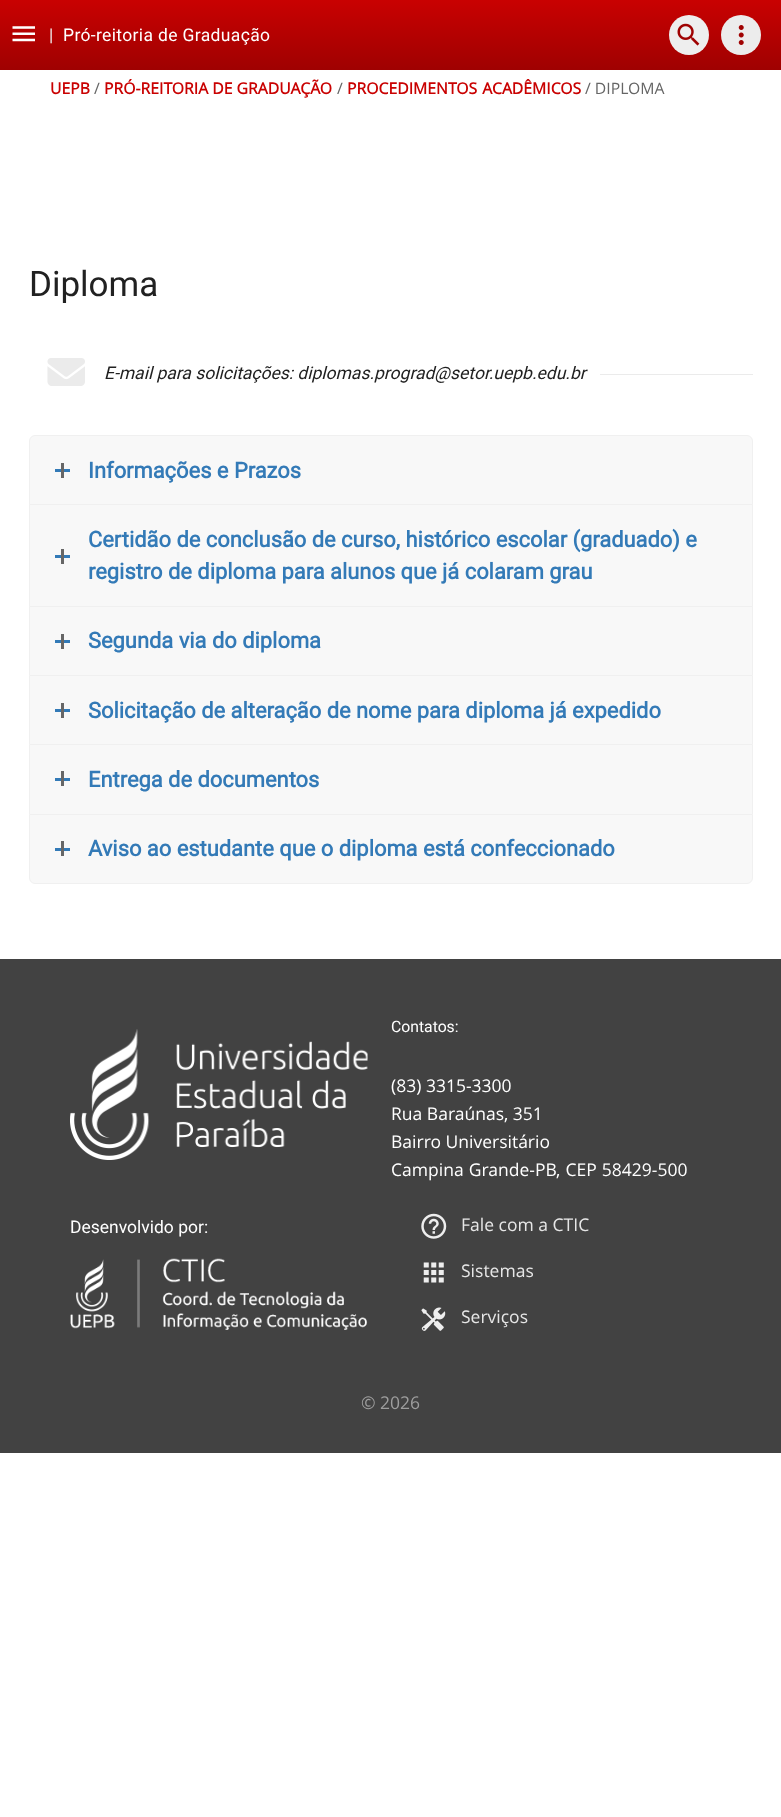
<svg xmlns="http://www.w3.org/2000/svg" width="781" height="1817">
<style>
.a{font:17.5px Roboto;letter-spacing:0.35px;fill:#eee}
.b{font:17.5px Roboto;letter-spacing:0.35px;fill:#fff}
.c{font:bold 15.75px Open Sans;fill:#c90101}
.d{font:15.75px Open Sans;fill:#666}
.e{font:35px Roboto;fill:#212121}
.f{font:italic 17.5px Roboto;fill:#212121}
.g{font:bold 21.9px Roboto;fill:#337ab7}
.h{font:15.75px Roboto;fill:#fff}
.i{font:17.5px Open Sans;fill:#fff}
.j{font:17.5px Roboto;fill:#fff}
.k{font:17.5px Open Sans;fill:#e6e6e6}
.l{font:17.5px Open Sans;fill:#9e9e9e}
</style>
<defs>
<linearGradient id="g1" gradientUnits="userSpaceOnUse" x1="391" y1="70" x2="391" y2="0"><stop offset="0" stop-color="#9f0101"/><stop offset="1" stop-color="#c90101"/></linearGradient>
</defs>
<rect width="100%" height="100%" fill="#fff"/>
<path fill="url(#g1)" d="M0 0h781v70H0z"/>
<image href="1.png" x="12" y="26" width="23" height="16"/>
<circle fill="#eee" cx="689" cy="35" r="20"/>
<image href="2.png" x="677" y="23" width="23" height="23"/>
<circle fill="#ececec" cx="741" cy="35" r="20"/>
<image href="3.png" x="738" y="25" width="6" height="20"/>
<image href="4.png" x="47" y="358" width="38" height="28"/>
<path fill="#ebebeb" d="M600 374h153v1H600z"/>
<path fill="#f8f8f8" stroke="#f0f0f0" d="M35 435.5h712c3 0 5.5 2.5 5.5 5.5v63.5h-723v-63.5c0-3 2.5-5.5 5.5-5.5z"/>
<path fill="#337ab7" d="M55 469h15v3H55z"/>
<path fill="#666" d="M61 463h3v15H61z"/>
<path fill="#f8f8f8" d="M30 505h722v101H30z"/>
<path fill="none" stroke="#f0f0f0" d="M29.5 504.5h723v103H29.5z"/>
<path fill="#337ab7" d="M55 555h15v3H55z"/>
<path fill="#666" d="M61 549h3v15H61z"/>
<path fill="#f8f8f8" stroke="#f0f0f0" d="M29.5 606.5h723v69H29.5z"/>
<path fill="#337ab7" d="M55 640h15v3H55z"/>
<path fill="#666" d="M61 634h3v15H61z"/>
<path fill="#f8f8f8" stroke="#f0f0f0" d="M29.5 675.5h723v69H29.5z"/>
<path fill="#337ab7" d="M55 709h15v3H55z"/>
<path fill="#666" d="M61 703h3v15H61z"/>
<path fill="#f8f8f8" stroke="#f0f0f0" d="M29.5 744.5h723v70H29.5z"/>
<path fill="#337ab7" d="M55 778h15v3H55z"/>
<path fill="#666" d="M61 771h3v15H61z"/>
<path fill="#f8f8f8" stroke="#f0f0f0" d="M29.5 814.5h723v63.5c0 3-2.5 5.5-5.5 5.5h-712c-3 0-5.5-2.5-5.5-5.5z"/>
<path fill="#337ab7" d="M55 848h15v3H55z"/>
<path fill="#666" d="M61 841h3v15H61z"/>
<path fill="#424242" d="M0 959h781v494H0z"/>
<image href="5.png" x="70" y="1029" width="298" height="131"/>
<image href="6.png" x="70" y="1258" width="298" height="72"/>
<image href="7.png" x="421" y="1213" width="26" height="26"/>
<image href="8.png" x="423" y="1262" width="21" height="21"/>
<image href="9.png" x="421" y="1307" width="25" height="24"/>
<text class="a" x="49" y="41">|</text>
<text class="b" x="63" y="41">Pró-reitoria de Graduação</text>
<text class="c" x="50" y="94">UEPB</text>
<text class="d" x="94" y="94">/</text>
<text class="c" x="104" y="94">PRÓ-REITORIA DE GRADUAÇÃO</text>
<text class="d" x="337" y="94">/</text>
<text class="c" x="347" y="94" word-spacing="1">PROCEDIMENTOS ACADÊMICOS</text>
<text class="d" x="585" y="94">/ DIPLOMA</text>
<text class="e" x="29" y="296">Diploma</text>
<text class="f" x="104" y="379">E-mail para solicitações: diplomas.prograd@setor.uepb.edu.br</text>
<text class="g" x="88" y="478">Informações e Prazos</text>
<text class="g" x="88" y="547">Certidão de conclusão de curso, histórico escolar (graduado) e</text>
<text class="g" x="88" y="579">registro de diploma para alunos que já colaram grau</text>
<text class="g" x="88" y="648">Segunda via do diploma</text>
<text class="g" x="88" y="718">Solicitação de alteração de nome para diploma já expedido</text>
<text class="g" x="88" y="787">Entrega de documentos</text>
<text class="g" x="88" y="856">Aviso ao estudante que o diploma está confeccionado</text>
<text class="h" x="391" y="1032">Contatos:</text>
<text class="i" x="391" y="1092">(83) 3315-3300</text>
<text class="i" x="391" y="1120">Rua Baraúnas, 351</text>
<text class="i" x="391" y="1148">Bairro Universitário</text>
<text class="i" x="391" y="1176" word-spacing="0.5">Campina Grande-PB, CEP 58429-500</text>
<text class="j" x="70" y="1233">Desenvolvido por:</text>
<text class="k" x="461" y="1231">Fale com a CTIC</text>
<text class="k" x="461" y="1277">Sistemas</text>
<text class="k" x="461" y="1323">Serviços</text>
<text class="l" x="361" y="1409">© 2026</text>
</svg>
